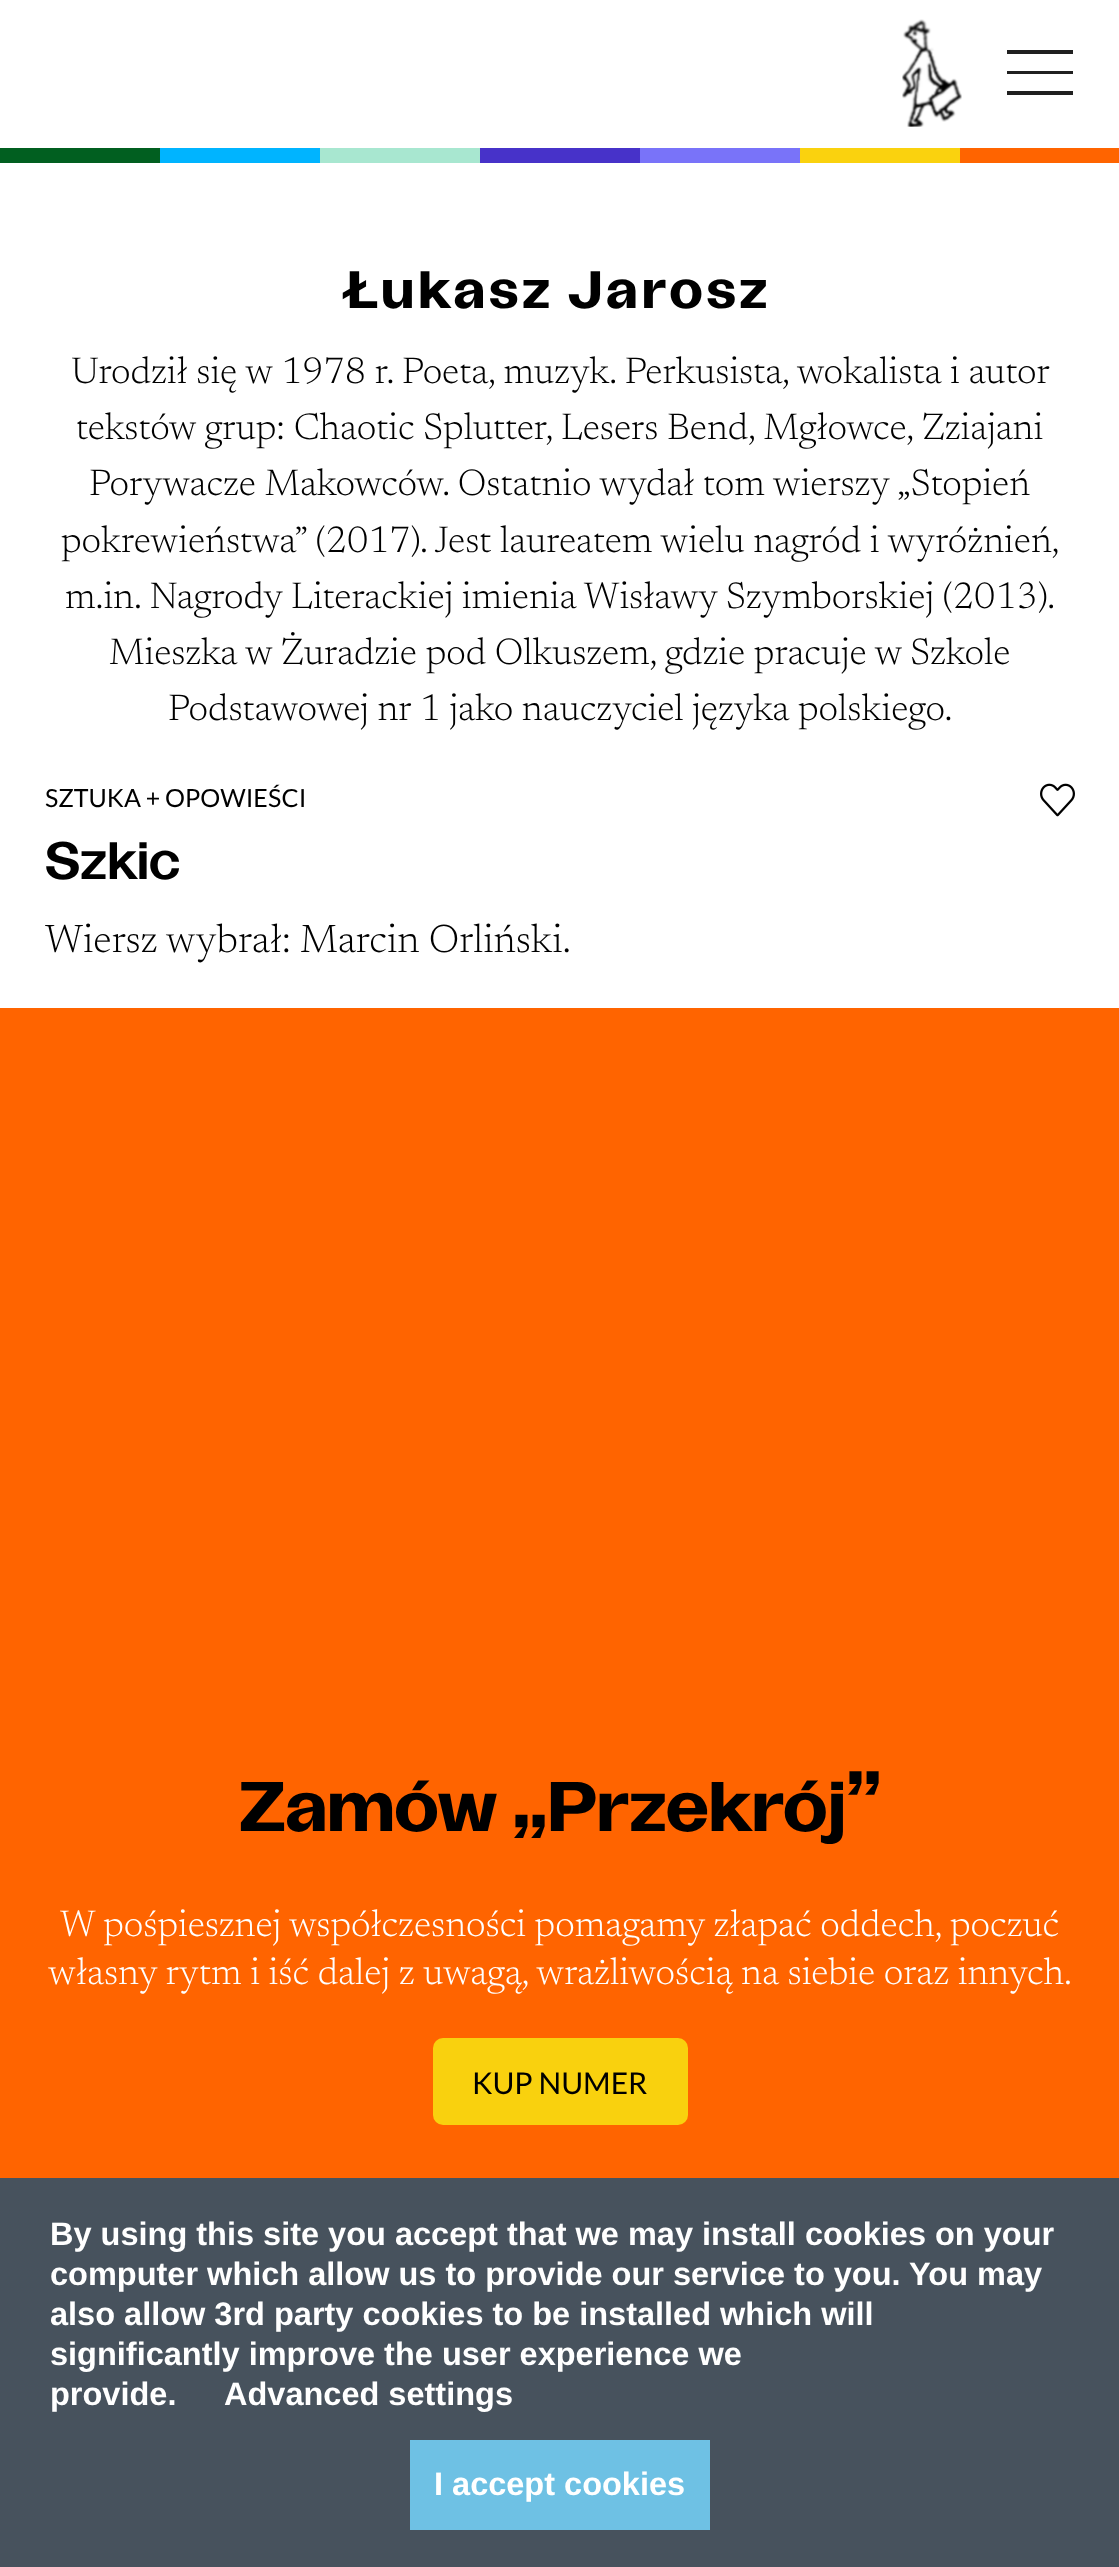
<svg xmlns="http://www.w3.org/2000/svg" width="1119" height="2567">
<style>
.a{font:800 52.5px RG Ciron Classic;letter-spacing:4px;fill:#000}
.b{font:300 37.5px Newsreader;fill:#000}
.c{font:25px Lato;fill:#000}
.d{font:bold 52.5px RG Ciron Classic;fill:#000}
.e{font:300 40px Newsreader;fill:#000}
.f{font:800 70px RG Ciron Classic;fill:#000}
.g{font:300 37.5px Newsreader;fill:#fff}
.h{font:30px Lato;fill:#000}
.i{font:bold 32.5px Liberation Sans;fill:#fff}
</style>
<rect width="100%" height="100%" fill="#fff"/>
<image href="1.png" x="902" y="19" width="60" height="108"/>
<path fill="#202020" d="M1007 50h66v4H1007z"/>
<path fill="#202020" d="M1007 71h66v3H1007z"/>
<path fill="#202020" d="M1007 91h66v4H1007z"/>
<path fill="#015f20" d="M0 148h160v15H0z"/>
<path fill="#00b4ff" d="M160 148h160v15H160z"/>
<path fill="#a8e7d0" d="M320 148h160v15H320z"/>
<path fill="#4732c9" d="M480 148h160v15H480z"/>
<path fill="#7973f9" d="M640 148h160v15H640z"/>
<path fill="#fad20e" d="M800 148h160v15H800z"/>
<path fill="#ff6400" d="M960 148h159v15H960z"/>
<image href="2.png" x="1040" y="783" width="35" height="34"/>
<path fill="#ff6400" d="M0 1008h1119v1170H0z"/>
<rect fill="#f9d10e" x="433" y="2038" width="255" height="87" rx="10"/>
<path fill="#47525d" d="M0 2178h1119v389H0z"/>
<path fill="#6ec1e4" d="M410 2440h300v90H410z"/>
<text class="a" x="347" y="308">Łukasz Jarosz</text>
<text class="b" x="71" y="383">Urodził się w 1978 r. Poeta, muzyk. Perkusista, wokalista i autor</text>
<text class="b" x="76" y="439">tekstów grup: Chaotic Splutter, Lesers Bend, Mgłowce, Zziajani</text>
<text class="b" x="89" y="495">Porywacze Makowców. Ostatnio wydał tom wierszy „Stopień</text>
<text class="b" x="61" y="552">pokrewieństwa” (2017). Jest laureatem wielu nagród i wyróżnień,</text>
<text class="b" x="65" y="608">m.in. Nagrody Literackiej imienia Wisławy Szymborskiej (2013).</text>
<text class="b" x="109" y="664">Mieszka w Żuradzie pod Olkuszem, gdzie pracuje w Szkole</text>
<text class="b" x="168" y="720">Podstawowej nr 1 jako nauczyciel języka polskiego.</text>
<text class="c" x="45" y="807">SZTUKA + OPOWIEŚCI</text>
<text class="d" x="45" y="879">Szkic</text>
<text class="e" x="45" y="952">Wiersz wybrał: Marcin Orliński.</text>
<text class="f" x="239" y="1831">Zamów „Przekrój”</text>
<text class="g" x="60" y="1936">W pośpiesznej współczesności pomagamy złapać oddech, poczuć</text>
<text class="g" x="48" y="1984">własny rytm i iść dalej z uwagą, wrażliwością na siebie oraz innych.</text>
<text class="h" x="472" y="2094">KUP NUMER</text>
<text class="i" x="50" y="2245">By using this site you accept that we may install cookies on your</text>
<text class="i" x="50" y="2285">computer which allow us to provide our service to you. You may</text>
<text class="i" x="50" y="2325">also allow 3rd party cookies to be installed which will</text>
<text class="i" x="50" y="2365">significantly improve the user experience we</text>
<text class="i" x="50" y="2405">provide.</text>
<text class="i" x="224" y="2405">Advanced settings</text>
<text class="i" x="434" y="2495">I accept cookies</text>
</svg>
